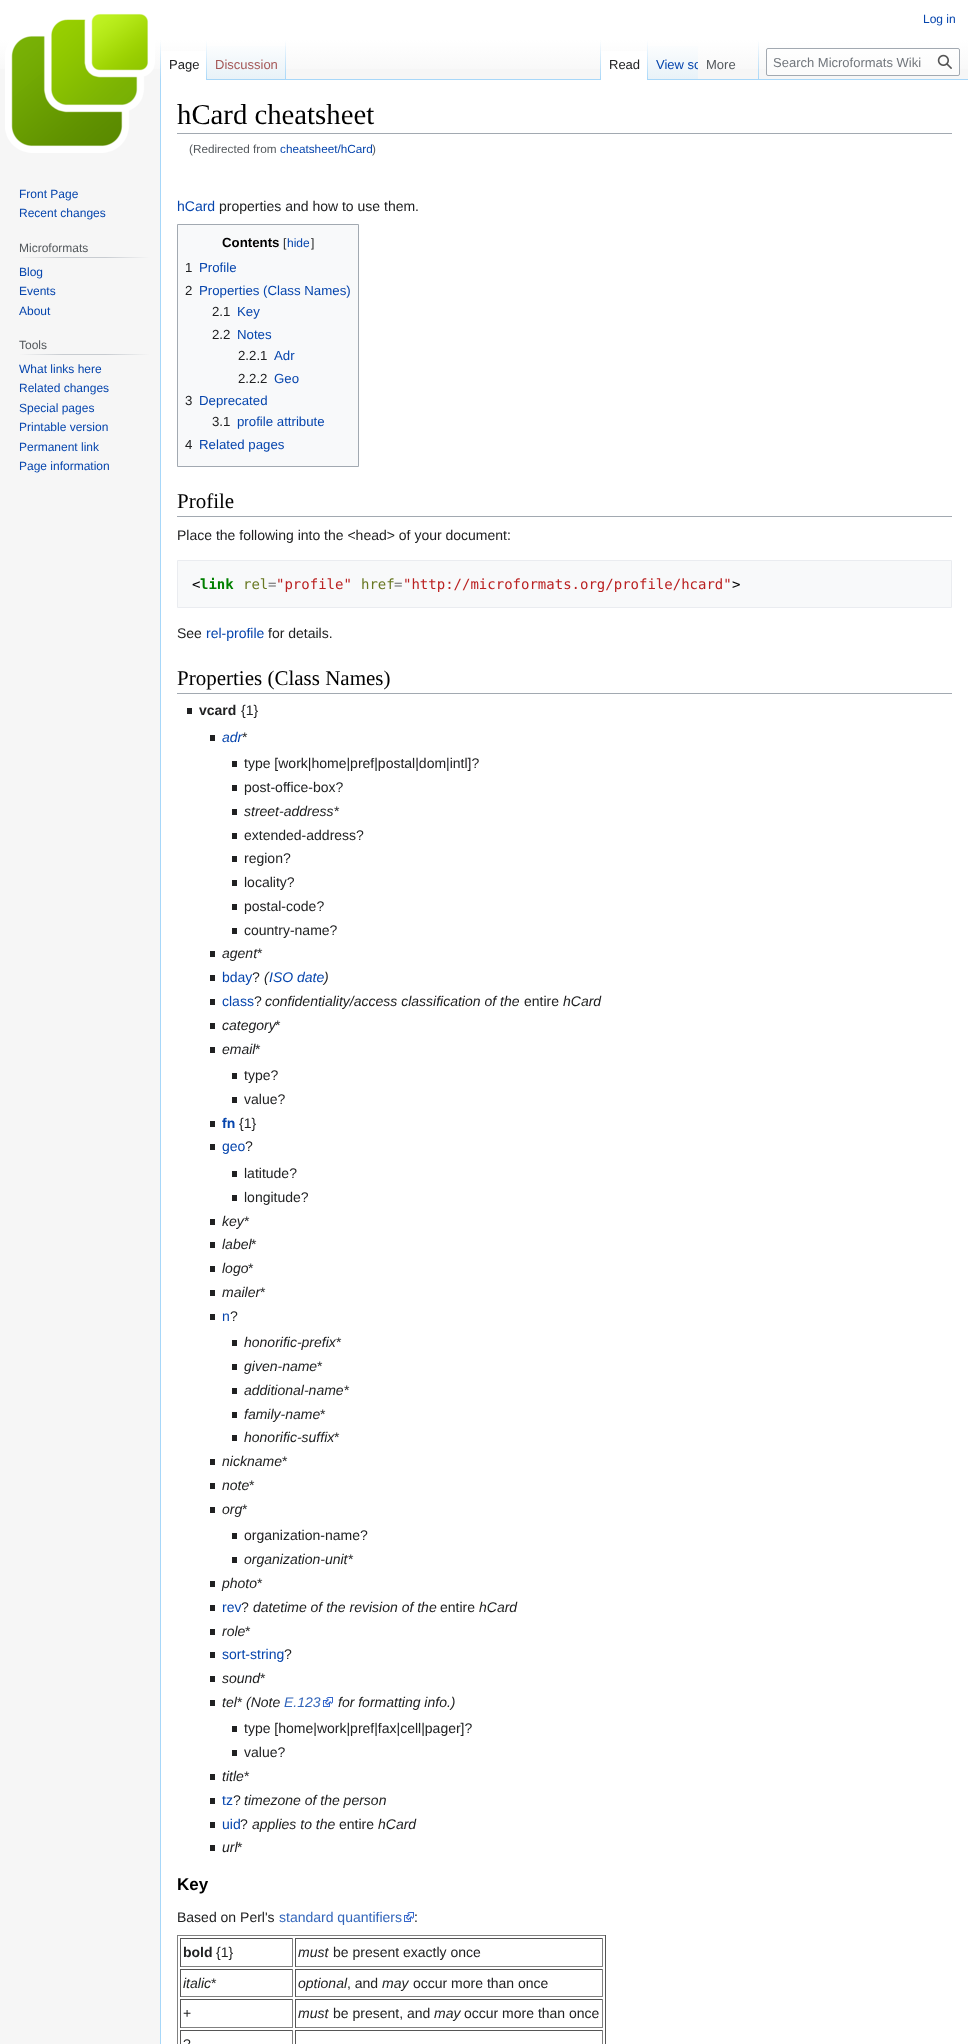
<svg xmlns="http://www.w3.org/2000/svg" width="968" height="2044">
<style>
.a{font:12px Liberation Sans;fill:#0645ad}
.b{font:13px Liberation Sans;fill:#202122}
.c{font:13px Liberation Sans;fill:#a55858}
.d{font:13px Liberation Sans;fill:#0645ad}
.e{font:13px Liberation Sans;fill:#54595d}
.f{font:13px Liberation Sans;fill:#72777d}
.g{font:12px Liberation Sans;fill:#54595d}
.h{font:28.75px Liberation Serif;fill:#000}
.i{font:11.75px Liberation Sans;fill:#54595d}
.j{font:11.75px Liberation Sans;fill:#0645ad}
.k{font:14px Liberation Sans;fill:#0645ad}
.l{font:14px Liberation Sans;fill:#202122}
.m{font:bold 13.25px Liberation Sans;fill:#000}
.n{font:12px Liberation Sans;fill:#202122}
.o{font:13.25px Liberation Sans;fill:#202122}
.p{font:13.25px Liberation Sans;fill:#0645ad}
.q{font:21px Liberation Serif;fill:#000}
.r{font:14px DejaVu Sans Mono;fill:#000}
.s{font:bold 14px DejaVu Sans Mono;fill:#008000}
.t{font:14px DejaVu Sans Mono;fill:#687822}
.u{font:14px DejaVu Sans Mono;fill:#666}
.v{font:14px DejaVu Sans Mono;fill:#ba2121}
.w{font:bold 14px Liberation Sans;fill:#202122}
.x{font:italic 14px Liberation Sans;fill:#0645ad}
.y{font:italic 14px Liberation Sans;fill:#202122}
.z{font:bold 14px Liberation Sans;fill:#0645ad}
.a1{font:italic 14px Liberation Sans;fill:#36b}
.b1{font:bold 17px Liberation Sans;fill:#000}
.c1{font:14px Liberation Sans;fill:#36b}
</style>
<defs>
<linearGradient id="g1" gradientUnits="userSpaceOnUse" x1="484" y1="0" x2="484" y2="80"><stop offset="0.5" stop-color="#fff"/><stop offset="1" stop-color="#f6f6f6"/></linearGradient>
<linearGradient id="g2" gradientUnits="userSpaceOnUse" x1="161" y1="40" x2="161" y2="80"><stop offset="0" stop-color="#a7d7f9" stop-opacity="0"/><stop offset="1" stop-color="#a7d7f9"/></linearGradient>
<linearGradient id="g3" gradientUnits="userSpaceOnUse" x1="207" y1="40" x2="207" y2="80"><stop offset="0" stop-color="#fff"/><stop offset="1" stop-color="#a7d7f9"/></linearGradient>
<linearGradient id="g4" gradientUnits="userSpaceOnUse" x1="247" y1="80" x2="247" y2="40"><stop offset="0" stop-color="#77c1f6"/><stop offset="0.03" stop-color="#e8f2f8"/><stop offset="1" stop-color="#fff"/></linearGradient>
<linearGradient id="g5" gradientUnits="userSpaceOnUse" x1="286" y1="40" x2="286" y2="80"><stop offset="0" stop-color="#a7d7f9" stop-opacity="0"/><stop offset="1" stop-color="#a7d7f9"/></linearGradient>
<linearGradient id="g6" gradientUnits="userSpaceOnUse" x1="601" y1="40" x2="601" y2="80"><stop offset="0" stop-color="#a7d7f9" stop-opacity="0"/><stop offset="1" stop-color="#a7d7f9"/></linearGradient>
<linearGradient id="g7" gradientUnits="userSpaceOnUse" x1="648" y1="40" x2="648" y2="80"><stop offset="0" stop-color="#fff"/><stop offset="1" stop-color="#a7d7f9"/></linearGradient>
<linearGradient id="g8" gradientUnits="userSpaceOnUse" x1="673" y1="80" x2="673" y2="40"><stop offset="0" stop-color="#77c1f6"/><stop offset="0.03" stop-color="#e8f2f8"/><stop offset="1" stop-color="#fff"/></linearGradient>
<linearGradient id="g9" gradientUnits="userSpaceOnUse" x1="759" y1="40" x2="759" y2="80"><stop offset="0" stop-color="#a7d7f9" stop-opacity="0"/><stop offset="1" stop-color="#a7d7f9"/></linearGradient>
<linearGradient id="g10" gradientUnits="userSpaceOnUse" x1="19" y1="258" x2="150" y2="258"><stop offset="0" stop-color="#f6f6f6"/><stop offset="0.33" stop-color="#c8ccd1"/><stop offset="0.66" stop-color="#c8ccd1"/><stop offset="1" stop-color="#f6f6f6"/></linearGradient>
<linearGradient id="g11" gradientUnits="userSpaceOnUse" x1="19" y1="355" x2="150" y2="355"><stop offset="0" stop-color="#f6f6f6"/><stop offset="0.33" stop-color="#c8ccd1"/><stop offset="0.66" stop-color="#c8ccd1"/><stop offset="1" stop-color="#f6f6f6"/></linearGradient>
<clipPath id="clip1"><path d="M648 40h50v40H648z"/></clipPath>
</defs>
<rect width="100%" height="100%" fill="#f6f6f6"/>
<path fill="url(#g1)" d="M0 0h968v69H0z"/>
<path fill="#a7d7f9" d="M160 79h1v1965H160z"/>
<path fill="url(#g2)" d="M160 40h1v40H160z"/>
<path fill="#fff" d="M161 51h45v29H161z"/>
<path fill="url(#g3)" d="M206 40h1v40H206z"/>
<path fill="url(#g4)" d="M207 46h79v34H207z"/>
<path fill="url(#g5)" d="M285 40h1v40H285z"/>
<path fill="#a7d7f9" d="M286 79h682v1H286z"/>
<path fill="url(#g6)" d="M600 40h1v40H600z"/>
<path fill="#fff" d="M601 51h46v29H601z"/>
<path fill="url(#g7)" d="M647 40h1v40H647z"/>
<path fill="url(#g8)" d="M648 46h50v33H648z"/>
<path fill="url(#g9)" d="M758 40h1v40H758z"/>
<rect fill="#ffffff80" stroke="#a2a9b1" x="766.5" y="48.5" width="193" height="27" rx="1.5"/>
<image href="1.png" x="937" y="54" width="15" height="15"/>
<image href="2.png" x="5" y="13" width="150" height="140"/>
<path fill="url(#g10)" d="M19 257h131v1H19z"/>
<path fill="url(#g11)" d="M19 354h131v1H19z"/>
<path fill="#fff" d="M161 80h807v1964H161z"/>
<path fill="#a2a9b1" d="M177 133h775v1H177z"/>
<path fill="#f8f9fa" stroke="#a2a9b1" d="M177.5 224.5h181v242H177.5z"/>
<path fill="#a2a9b1" d="M177 516h775v1H177z"/>
<path fill="#f8f9fa" stroke="#eaecf0" d="M177.5 560.5h774v47H177.5z"/>
<path fill="#a2a9b1" d="M177 693h775v1H177z"/>
<path fill="#202122" d="M187 708h5v6H187z"/>
<path fill="#202122" d="M210 735h5v6H210z"/>
<path fill="#202122" d="M232 761h5v6H232z"/>
<path fill="#202122" d="M232 785h5v6H232z"/>
<path fill="#202122" d="M232 809h5v6H232z"/>
<path fill="#202122" d="M232 833h5v6H232z"/>
<path fill="#202122" d="M232 856h5v6H232z"/>
<path fill="#202122" d="M232 880h5v6H232z"/>
<path fill="#202122" d="M232 904h5v6H232z"/>
<path fill="#202122" d="M232 928h5v6H232z"/>
<path fill="#202122" d="M210 951h5v6H210z"/>
<path fill="#202122" d="M210 975h5v6H210z"/>
<path fill="#202122" d="M210 999h5v6H210z"/>
<path fill="#202122" d="M210 1023h5v6H210z"/>
<path fill="#202122" d="M210 1047h5v6H210z"/>
<path fill="#202122" d="M232 1073h5v6H232z"/>
<path fill="#202122" d="M232 1097h5v6H232z"/>
<path fill="#202122" d="M210 1121h5v6H210z"/>
<path fill="#202122" d="M210 1144h5v6H210z"/>
<path fill="#202122" d="M232 1171h5v6H232z"/>
<path fill="#202122" d="M232 1195h5v6H232z"/>
<path fill="#202122" d="M210 1219h5v6H210z"/>
<path fill="#202122" d="M210 1242h5v6H210z"/>
<path fill="#202122" d="M210 1266h5v6H210z"/>
<path fill="#202122" d="M210 1290h5v6H210z"/>
<path fill="#202122" d="M210 1314h5v6H210z"/>
<path fill="#202122" d="M232 1340h5v6H232z"/>
<path fill="#202122" d="M232 1364h5v6H232z"/>
<path fill="#202122" d="M232 1388h5v6H232z"/>
<path fill="#202122" d="M232 1412h5v6H232z"/>
<path fill="#202122" d="M232 1435h5v6H232z"/>
<path fill="#202122" d="M210 1459h5v6H210z"/>
<path fill="#202122" d="M210 1483h5v6H210z"/>
<path fill="#202122" d="M210 1507h5v6H210z"/>
<path fill="#202122" d="M232 1533h5v6H232z"/>
<path fill="#202122" d="M232 1557h5v6H232z"/>
<path fill="#202122" d="M210 1581h5v6H210z"/>
<path fill="#202122" d="M210 1605h5v6H210z"/>
<path fill="#202122" d="M210 1629h5v6H210z"/>
<path fill="#202122" d="M210 1652h5v6H210z"/>
<path fill="#202122" d="M210 1676h5v6H210z"/>
<path fill="#202122" d="M210 1700h5v6H210z"/>
<image href="3.png" x="323" y="1697" width="10" height="10"/>
<path fill="#202122" d="M232 1726h5v6H232z"/>
<path fill="#202122" d="M232 1750h5v6H232z"/>
<path fill="#202122" d="M210 1774h5v6H210z"/>
<path fill="#202122" d="M210 1798h5v6H210z"/>
<path fill="#202122" d="M210 1822h5v6H210z"/>
<path fill="#202122" d="M210 1845h5v6H210z"/>
<image href="3.png" x="404" y="1912" width="10" height="10"/>
<path fill="#808080" d="M177 1935h429v1H177z"/>
<path fill="#555" d="M605 1935h1v109H605z"/>
<path fill="#808080" d="M177 1935h1v109H177z"/>
<path fill="#555" d="M180 1938h113v1H180z"/>
<path fill="#808080" d="M292 1938h1v29H292z"/>
<path fill="#808080" d="M180 1966h113v1H180z"/>
<path fill="#555" d="M180 1938h1v29H180z"/>
<path fill="#555" d="M295 1938h308v1H295z"/>
<path fill="#808080" d="M602 1938h1v29H602z"/>
<path fill="#808080" d="M295 1966h308v1H295z"/>
<path fill="#555" d="M295 1938h1v29H295z"/>
<path fill="#555" d="M180 1969h113v1H180z"/>
<path fill="#808080" d="M292 1969h1v28H292z"/>
<path fill="#808080" d="M180 1996h113v1H180z"/>
<path fill="#555" d="M180 1969h1v28H180z"/>
<path fill="#555" d="M295 1969h308v1H295z"/>
<path fill="#808080" d="M602 1969h1v28H602z"/>
<path fill="#808080" d="M295 1996h308v1H295z"/>
<path fill="#555" d="M295 1969h1v28H295z"/>
<path fill="#555" d="M180 1999h113v1H180z"/>
<path fill="#808080" d="M292 1999h1v29H292z"/>
<path fill="#808080" d="M180 2027h113v1H180z"/>
<path fill="#555" d="M180 1999h1v29H180z"/>
<path fill="#555" d="M295 1999h308v1H295z"/>
<path fill="#808080" d="M602 1999h1v29H602z"/>
<path fill="#808080" d="M295 2027h308v1H295z"/>
<path fill="#555" d="M295 1999h1v29H295z"/>
<path fill="#555" d="M180 2030h113v1H180z"/>
<path fill="#808080" d="M292 2030h1v14H292z"/>
<path fill="#555" d="M180 2030h1v14H180z"/>
<path fill="#555" d="M295 2030h308v1H295z"/>
<path fill="#808080" d="M602 2030h1v14H602z"/>
<path fill="#555" d="M295 2030h1v14H295z"/>
<text class="a" x="923" y="23">Log in</text>
<text class="b" x="169" y="69">Page</text>
<text class="c" x="215" y="69">Discussion</text>
<text class="b" x="609" y="69">Read</text>
<g clip-path="url(#clip1)">
<text class="d" x="656" y="69">View so</text>
</g>
<text class="e" x="706" y="69">More</text>
<text class="f" x="773" y="67">Search Microformats Wiki</text>
<text class="a" x="19" y="198">Front Page</text>
<text class="a" x="19" y="217">Recent changes</text>
<text class="g" x="19" y="252">Microformats</text>
<text class="a" x="19" y="276">Blog</text>
<text class="a" x="19" y="295">Events</text>
<text class="a" x="19" y="315">About</text>
<text class="g" x="19" y="349">Tools</text>
<text class="a" x="19" y="373">What links here</text>
<text class="a" x="19" y="392">Related changes</text>
<text class="a" x="19" y="412">Special pages</text>
<text class="a" x="19" y="431">Printable version</text>
<text class="a" x="19" y="451">Permanent link</text>
<text class="a" x="19" y="470">Page information</text>
<text class="h" x="177" y="124">hCard cheatsheet</text>
<text class="i" x="189" y="153">(Redirected from</text>
<text class="j" x="280" y="153">cheatsheet/hCard</text>
<text class="i" x="372" y="153">)</text>
<text class="k" x="177" y="211">hCard</text>
<text class="l" x="219" y="211">properties and how to use them.</text>
<text class="m" x="222" y="247">Contents</text>
<text class="n" x="283" y="247">[</text>
<text class="a" x="287" y="247">hide</text>
<text class="n" x="311" y="247">]</text>
<text class="o" x="185" y="272">1</text>
<text class="p" x="199" y="272">Profile</text>
<text class="o" x="185" y="295">2</text>
<text class="p" x="199" y="295">Properties (Class Names)</text>
<text class="o" x="212" y="316">2.1</text>
<text class="p" x="237" y="316">Key</text>
<text class="o" x="212" y="339">2.2</text>
<text class="p" x="237" y="339">Notes</text>
<text class="o" x="238" y="360">2.2.1</text>
<text class="p" x="274" y="360">Adr</text>
<text class="o" x="238" y="383">2.2.2</text>
<text class="p" x="274" y="383">Geo</text>
<text class="o" x="185" y="405">3</text>
<text class="p" x="199" y="405">Deprecated</text>
<text class="o" x="212" y="426">3.1</text>
<text class="p" x="237" y="426">profile attribute</text>
<text class="o" x="185" y="449">4</text>
<text class="p" x="199" y="449">Related pages</text>
<text class="q" x="177" y="508">Profile</text>
<text class="l" x="177" y="540">Place the following into the &lt;head&gt; of your document:</text>
<text class="r" x="192" y="589">&lt;</text>
<text class="s" x="200" y="589">link</text>
<text class="t" x="243" y="589">rel</text>
<text class="u" x="268" y="589">=</text>
<text class="v" x="276" y="589">"profile"</text>
<text class="t" x="361" y="589">href</text>
<text class="u" x="394" y="589">=</text>
<text class="v" x="403" y="589">"http://microformats.org/profile/hcard"</text>
<text class="r" x="732" y="589">&gt;</text>
<text class="l" x="177" y="638">See</text>
<text class="k" x="206" y="638">rel-profile</text>
<text class="l" x="268" y="638">for details.</text>
<text class="q" x="177" y="685">Properties (Class Names)</text>
<text class="w" x="199" y="715">vcard</text>
<text class="l" x="241" y="715">{1}</text>
<text class="x" x="222" y="742">adr</text>
<text class="l" x="242" y="742">*</text>
<text class="l" x="244" y="768">type [work|home|pref|postal|dom|intl]?</text>
<text class="l" x="244" y="792">post-office-box?</text>
<text class="y" x="244" y="816">street-address</text>
<text class="l" x="334" y="816">*</text>
<text class="l" x="244" y="840">extended-address?</text>
<text class="l" x="244" y="863">region?</text>
<text class="l" x="244" y="887">locality?</text>
<text class="l" x="244" y="911">postal-code?</text>
<text class="l" x="244" y="935">country-name?</text>
<text class="y" x="222" y="958">agent</text>
<text class="l" x="257" y="958">*</text>
<text class="k" x="222" y="982">bday</text>
<text class="l" x="252" y="982">?</text>
<text class="y" x="264" y="982">(</text>
<text class="x" x="269" y="982">ISO date</text>
<text class="y" x="324" y="982">)</text>
<text class="k" x="222" y="1006">class</text>
<text class="l" x="254" y="1006">?</text>
<text class="y" x="265" y="1006">confidentiality/access classification of the</text>
<text class="l" x="524" y="1006">entire</text>
<text class="y" x="563" y="1006">hCard</text>
<text class="y" x="222" y="1030">category</text>
<text class="l" x="275" y="1030">*</text>
<text class="y" x="222" y="1054">email</text>
<text class="l" x="255" y="1054">*</text>
<text class="l" x="244" y="1080">type?</text>
<text class="l" x="244" y="1104">value?</text>
<text class="z" x="222" y="1128">fn</text>
<text class="l" x="239" y="1128">{1}</text>
<text class="k" x="222" y="1151">geo</text>
<text class="l" x="245" y="1151">?</text>
<text class="l" x="244" y="1178">latitude?</text>
<text class="l" x="244" y="1202">longitude?</text>
<text class="y" x="222" y="1226">key</text>
<text class="l" x="244" y="1226">*</text>
<text class="y" x="222" y="1249">label</text>
<text class="l" x="251" y="1249">*</text>
<text class="y" x="222" y="1273">logo</text>
<text class="l" x="248" y="1273">*</text>
<text class="y" x="222" y="1297">mailer</text>
<text class="l" x="260" y="1297">*</text>
<text class="k" x="222" y="1321">n</text>
<text class="l" x="230" y="1321">?</text>
<text class="y" x="244" y="1347">honorific-prefix</text>
<text class="l" x="336" y="1347">*</text>
<text class="y" x="244" y="1371">given-name</text>
<text class="l" x="317" y="1371">*</text>
<text class="y" x="244" y="1395">additional-name</text>
<text class="l" x="344" y="1395">*</text>
<text class="y" x="244" y="1419">family-name</text>
<text class="l" x="320" y="1419">*</text>
<text class="y" x="244" y="1442">honorific-suffix</text>
<text class="l" x="334" y="1442">*</text>
<text class="y" x="222" y="1466">nickname</text>
<text class="l" x="282" y="1466">*</text>
<text class="y" x="222" y="1490">note</text>
<text class="l" x="249" y="1490">*</text>
<text class="y" x="222" y="1514">org</text>
<text class="l" x="242" y="1514">*</text>
<text class="l" x="244" y="1540">organization-name?</text>
<text class="y" x="244" y="1564">organization-unit</text>
<text class="l" x="348" y="1564">*</text>
<text class="y" x="222" y="1588">photo</text>
<text class="l" x="257" y="1588">*</text>
<text class="k" x="222" y="1612">rev</text>
<text class="l" x="241" y="1612">?</text>
<text class="y" x="253" y="1612">datetime of the revision of the</text>
<text class="l" x="440" y="1612">entire</text>
<text class="y" x="479" y="1612">hCard</text>
<text class="y" x="222" y="1636">role</text>
<text class="l" x="245" y="1636">*</text>
<text class="k" x="222" y="1659">sort-string</text>
<text class="l" x="284" y="1659">?</text>
<text class="y" x="222" y="1683">sound</text>
<text class="l" x="260" y="1683">*</text>
<text class="y" x="222" y="1707">tel</text>
<text class="l" x="237" y="1707">*</text>
<text class="y" x="246" y="1707">(Note</text>
<text class="a1" x="284" y="1707">E.123</text>
<text class="y" x="338" y="1707">for formatting info.)</text>
<text class="l" x="244" y="1733">type [home|work|pref|fax|cell|pager]?</text>
<text class="l" x="244" y="1757">value?</text>
<text class="y" x="222" y="1781">title</text>
<text class="l" x="244" y="1781">*</text>
<text class="k" x="222" y="1805">tz</text>
<text class="l" x="233" y="1805">?</text>
<text class="y" x="244" y="1805">timezone of the person</text>
<text class="k" x="222" y="1829">uid</text>
<text class="l" x="240" y="1829">?</text>
<text class="y" x="252" y="1829">applies to the</text>
<text class="l" x="339" y="1829">entire</text>
<text class="y" x="378" y="1829">hCard</text>
<text class="y" x="222" y="1852">url</text>
<text class="l" x="237" y="1852">*</text>
<text class="b1" x="177" y="1890">Key</text>
<text class="l" x="177" y="1922">Based on Perl's</text>
<text class="c1" x="279" y="1922">standard quantifiers</text>
<text class="l" x="414" y="1922">:</text>
<text class="w" x="183" y="1957">bold</text>
<text class="l" x="216" y="1957">{1}</text>
<text class="y" x="298" y="1957">must</text>
<text class="l" x="333" y="1957">be present exactly once</text>
<text class="y" x="183" y="1988">italic</text>
<text class="l" x="211" y="1988">*</text>
<text class="y" x="298" y="1988">optional</text>
<text class="l" x="347" y="1988">, and</text>
<text class="y" x="382" y="1988">may</text>
<text class="l" x="413" y="1988">occur more than once</text>
<text class="l" x="183" y="2018">+</text>
<text class="y" x="298" y="2018">must</text>
<text class="l" x="333" y="2018">be present, and</text>
<text class="y" x="434" y="2018">may</text>
<text class="l" x="464" y="2018">occur more than once</text>
<text class="l" x="183" y="2049">?</text>
</svg>
